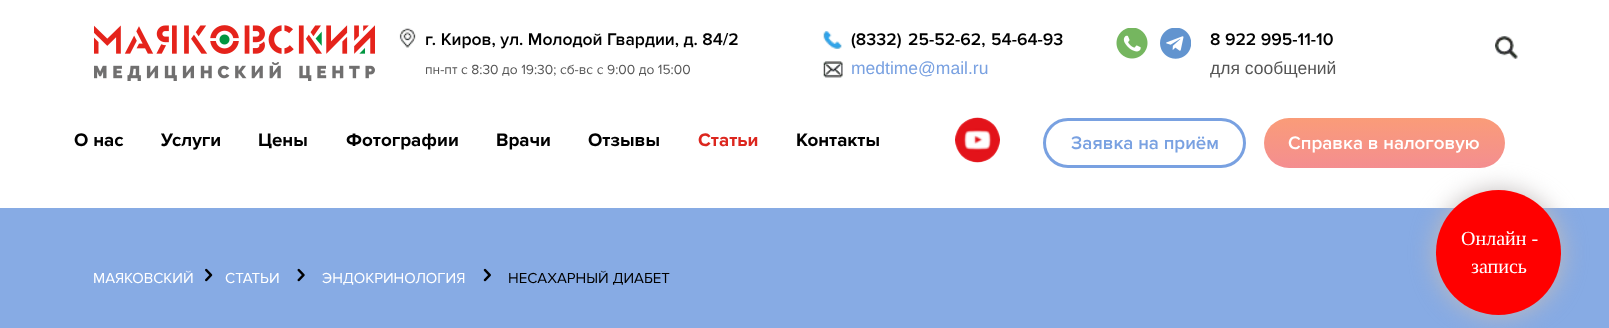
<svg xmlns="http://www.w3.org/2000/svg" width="1609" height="328">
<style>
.a{font:600 17.5px Proxima Nova;fill:#000}
.b{font:13.75px Proxima Nova;fill:#555}
.c{font:17.5px Liberation Sans;fill:#79a1e1}
.d{font:17.5px Liberation Sans;fill:#555}
.e{font:bold 18.75px Proxima Nova;fill:#000}
.f{font:bold 18.75px Proxima Nova;fill:#dc261e}
.g{font:600 18.75px Proxima Nova;fill:#79a1e1}
.h{font:600 18.75px Proxima Nova;fill:#fff}
.i{font:15px Proxima Nova;fill:#fff}
.j{font:15px Proxima Nova;fill:#000}
.k{font:20px Liberation Serif;fill:#fff}
</style>
<defs>
<linearGradient id="g1" gradientUnits="userSpaceOnUse" x1="1384" y1="117" x2="1384" y2="168"><stop offset="0" stop-color="#fa9c78"/><stop offset="1" stop-color="#f48e90"/></linearGradient>
</defs>
<rect width="100%" height="100%" fill="#fff"/>
<image href="1.png" x="94" y="25" width="281" height="56"/>
<image href="2.png" x="399" y="28" width="17" height="20"/>
<image href="3.png" x="823" y="31" width="19" height="18"/>
<image href="4.png" x="823" y="61" width="20" height="17"/>
<image href="5.png" x="1116" y="28" width="32" height="31"/>
<image href="6.png" x="1160" y="28" width="31" height="31"/>
<image href="7.png" x="1495" y="36" width="23" height="23"/>
<image href="8.png" x="955" y="117" width="45" height="46"/>
<rect fill="none" stroke="#79a1e1" stroke-width="3" x="1044.5" y="119.5" width="200" height="47" rx="23.5"/>
<rect fill="url(#g1)" x="1264" y="118" width="241" height="50" rx="25"/>
<path fill="#87abe4" d="M0 208h1609v120H0z"/>
<image href="9.png" x="205" y="268" width="8" height="14"/>
<image href="10.png" x="297" y="268" width="8" height="14"/>
<image href="11.png" x="483" y="268" width="8" height="14"/>
<rect fill="#c1bbbb" filter="blur(12.5px)" x="1436" y="190" width="125" height="125" rx="62.5"/>
<circle fill="#f00" cx="1498.5" cy="252.5" r="62.5"/>
<text class="a" x="425" y="45">г. Киров, ул. Молодой Гвардии, д. 84/2</text>
<text class="b" x="425" y="74">пн-пт с 8:30 до 19:30; сб-вс с 9:00 до 15:00</text>
<text class="a" x="851" y="45">(8332)</text>
<text class="a" x="908" y="45">25-52-62,</text>
<text class="a" x="991" y="45">54-64-93</text>
<text class="c" x="851" y="74">medtime@mail.ru</text>
<text class="a" x="1210" y="45">8 922 995-11-10</text>
<text class="d" x="1210" y="74">для сообщений</text>
<text class="e" x="74" y="146">О нас</text>
<text class="e" x="161" y="146">Услуги</text>
<text class="e" x="258" y="146">Цены</text>
<text class="e" x="346" y="146">Фотографии</text>
<text class="e" x="496" y="146">Врачи</text>
<text class="e" x="588" y="146">Отзывы</text>
<text class="f" x="698" y="146">Статьи</text>
<text class="e" x="796" y="146">Контакты</text>
<text class="g" x="1071" y="149">Заявка на приём</text>
<text class="h" x="1288" y="149">Справка в налоговую</text>
<text class="i" x="93" y="283">МАЯКОВСКИЙ</text>
<text class="i" x="225" y="283">СТАТЬИ</text>
<text class="i" x="322" y="283">ЭНДОКРИНОЛОГИЯ</text>
<text class="j" x="508" y="283">НЕСАХАРНЫЙ ДИАБЕТ</text>
<text class="k" x="1461" y="245">Онлайн -</text>
<text class="k" x="1471" y="273">запись</text>
</svg>
